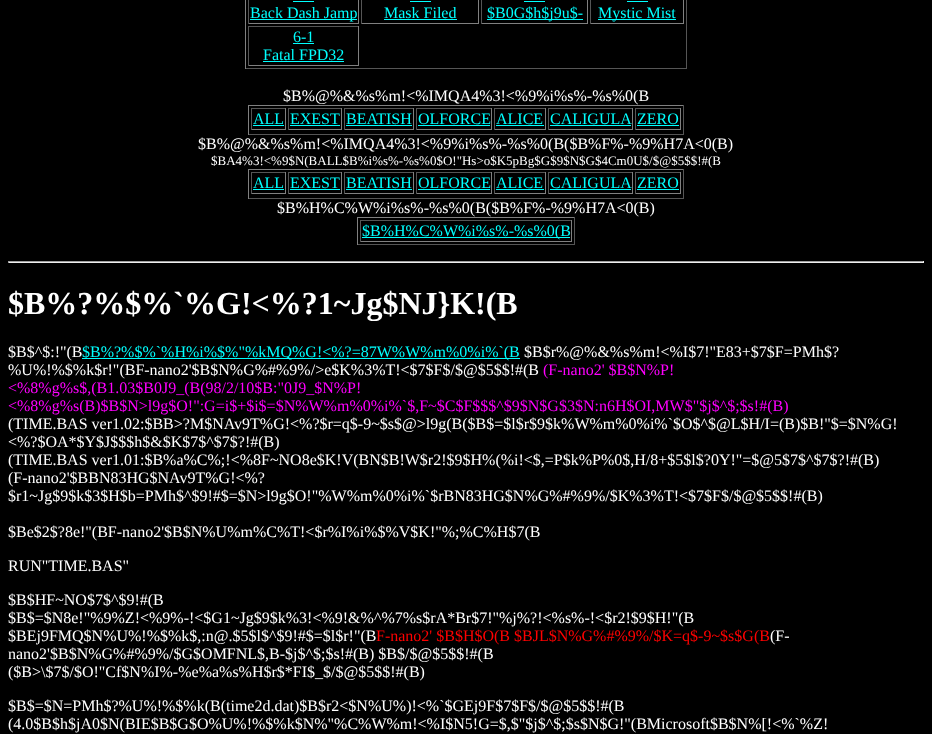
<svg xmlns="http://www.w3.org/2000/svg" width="932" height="734">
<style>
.a{font:16px Liberation Serif;fill:#0ff}
.b{font:16px Liberation Serif;fill:#fff}
.c{font:13px Liberation Serif;fill:#fff}
.d{font:bold 32px Liberation Serif;fill:#fff}
.e{font:16px Liberation Serif;fill:#f0f}
.f{font:16px Liberation Serif;fill:#f00}
</style>
<rect width="100%" height="100%" fill="#000"/>
<path fill="#555" d="M686 0h1v69H686z"/>
<path fill="#555" d="M245 68h442v1H245z"/>
<path fill="#808080" d="M245 0h1v69H245z"/>
<path fill="#808080" d="M358 0h1v24H358z"/>
<path fill="#808080" d="M248 23h111v1H248z"/>
<path fill="#555" d="M248 0h1v24H248z"/>
<path fill="#0ff" d="M293 1h21v1H293z"/>
<path fill="#0ff" d="M250 19h107v1H250z"/>
<path fill="#808080" d="M478 0h1v24H478z"/>
<path fill="#808080" d="M361 23h118v1H361z"/>
<path fill="#555" d="M361 0h1v24H361z"/>
<path fill="#0ff" d="M410 1h21v1H410z"/>
<path fill="#0ff" d="M384 19h73v1H384z"/>
<path fill="#808080" d="M587 0h1v24H587z"/>
<path fill="#808080" d="M481 23h107v1H481z"/>
<path fill="#555" d="M481 0h1v24H481z"/>
<path fill="#0ff" d="M524 1h21v1H524z"/>
<path fill="#0ff" d="M487 19h96v1H487z"/>
<path fill="#808080" d="M683 0h1v24H683z"/>
<path fill="#808080" d="M590 23h94v1H590z"/>
<path fill="#555" d="M590 0h1v24H590z"/>
<path fill="#0ff" d="M627 1h21v1H627z"/>
<path fill="#0ff" d="M598 19h78v1H598z"/>
<path fill="#555" d="M248 26h111v1H248z"/>
<path fill="#808080" d="M358 26h1v40H358z"/>
<path fill="#808080" d="M248 65h111v1H248z"/>
<path fill="#555" d="M248 26h1v40H248z"/>
<path fill="#0ff" d="M293 43h21v1H293z"/>
<path fill="#0ff" d="M263 61h81v1H263z"/>
<path fill="#808080" d="M248 105h436v1H248z"/>
<path fill="#555" d="M683 105h1v30H683z"/>
<path fill="#555" d="M248 134h436v1H248z"/>
<path fill="#808080" d="M248 105h1v30H248z"/>
<path fill="#555" d="M251 108h35v1H251z"/>
<path fill="#808080" d="M285 108h1v22H285z"/>
<path fill="#808080" d="M251 129h35v1H251z"/>
<path fill="#555" d="M251 108h1v22H251z"/>
<path fill="#0ff" d="M253 125h31v1H253z"/>
<path fill="#555" d="M288 108h54v1H288z"/>
<path fill="#808080" d="M341 108h1v22H341z"/>
<path fill="#808080" d="M288 129h54v1H288z"/>
<path fill="#555" d="M288 108h1v22H288z"/>
<path fill="#0ff" d="M290 125h50v1H290z"/>
<path fill="#555" d="M344 108h70v1H344z"/>
<path fill="#808080" d="M413 108h1v22H413z"/>
<path fill="#808080" d="M344 129h70v1H344z"/>
<path fill="#555" d="M344 108h1v22H344z"/>
<path fill="#0ff" d="M346 125h66v1H346z"/>
<path fill="#555" d="M416 108h76v1H416z"/>
<path fill="#808080" d="M491 108h1v22H491z"/>
<path fill="#808080" d="M416 129h76v1H416z"/>
<path fill="#555" d="M416 108h1v22H416z"/>
<path fill="#0ff" d="M418 125h72v1H418z"/>
<path fill="#555" d="M494 108h52v1H494z"/>
<path fill="#808080" d="M545 108h1v22H545z"/>
<path fill="#808080" d="M494 129h52v1H494z"/>
<path fill="#555" d="M494 108h1v22H494z"/>
<path fill="#0ff" d="M496 125h48v1H496z"/>
<path fill="#555" d="M548 108h85v1H548z"/>
<path fill="#808080" d="M632 108h1v22H632z"/>
<path fill="#808080" d="M548 129h85v1H548z"/>
<path fill="#555" d="M548 108h1v22H548z"/>
<path fill="#0ff" d="M550 125h81v1H550z"/>
<path fill="#555" d="M635 108h46v1H635z"/>
<path fill="#808080" d="M680 108h1v22H680z"/>
<path fill="#808080" d="M635 129h46v1H635z"/>
<path fill="#555" d="M635 108h1v22H635z"/>
<path fill="#0ff" d="M637 125h42v1H637z"/>
<path fill="#808080" d="M248 169h436v1H248z"/>
<path fill="#555" d="M683 169h1v30H683z"/>
<path fill="#555" d="M248 198h436v1H248z"/>
<path fill="#808080" d="M248 169h1v30H248z"/>
<path fill="#555" d="M251 172h35v1H251z"/>
<path fill="#808080" d="M285 172h1v22H285z"/>
<path fill="#808080" d="M251 193h35v1H251z"/>
<path fill="#555" d="M251 172h1v22H251z"/>
<path fill="#0ff" d="M253 189h31v1H253z"/>
<path fill="#555" d="M288 172h54v1H288z"/>
<path fill="#808080" d="M341 172h1v22H341z"/>
<path fill="#808080" d="M288 193h54v1H288z"/>
<path fill="#555" d="M288 172h1v22H288z"/>
<path fill="#0ff" d="M290 189h50v1H290z"/>
<path fill="#555" d="M344 172h70v1H344z"/>
<path fill="#808080" d="M413 172h1v22H413z"/>
<path fill="#808080" d="M344 193h70v1H344z"/>
<path fill="#555" d="M344 172h1v22H344z"/>
<path fill="#0ff" d="M346 189h66v1H346z"/>
<path fill="#555" d="M416 172h76v1H416z"/>
<path fill="#808080" d="M491 172h1v22H491z"/>
<path fill="#808080" d="M416 193h76v1H416z"/>
<path fill="#555" d="M416 172h1v22H416z"/>
<path fill="#0ff" d="M418 189h72v1H418z"/>
<path fill="#555" d="M494 172h52v1H494z"/>
<path fill="#808080" d="M545 172h1v22H545z"/>
<path fill="#808080" d="M494 193h52v1H494z"/>
<path fill="#555" d="M494 172h1v22H494z"/>
<path fill="#0ff" d="M496 189h48v1H496z"/>
<path fill="#555" d="M548 172h85v1H548z"/>
<path fill="#808080" d="M632 172h1v22H632z"/>
<path fill="#808080" d="M548 193h85v1H548z"/>
<path fill="#555" d="M548 172h1v22H548z"/>
<path fill="#0ff" d="M550 189h81v1H550z"/>
<path fill="#555" d="M635 172h46v1H635z"/>
<path fill="#808080" d="M680 172h1v22H680z"/>
<path fill="#808080" d="M635 193h46v1H635z"/>
<path fill="#555" d="M635 172h1v22H635z"/>
<path fill="#0ff" d="M637 189h42v1H637z"/>
<path fill="#808080" d="M357 217h218v1H357z"/>
<path fill="#555" d="M574 217h1v28H574z"/>
<path fill="#555" d="M357 244h218v1H357z"/>
<path fill="#808080" d="M357 217h1v28H357z"/>
<path fill="#555" d="M360 220h212v1H360z"/>
<path fill="#808080" d="M571 220h1v22H571z"/>
<path fill="#808080" d="M360 241h212v1H360z"/>
<path fill="#555" d="M360 220h1v22H360z"/>
<path fill="#0ff" d="M362 237h208v1H362z"/>
<path fill="#9f9f9f" d="M8 261h916v1H8z"/>
<path fill="#eee" d="M923 261h1v2H923z"/>
<path fill="#eee" d="M8 262h916v1H8z"/>
<path fill="#9f9f9f" d="M8 261h1v2H8z"/>
<path fill="#0ff" d="M82 358h438v1H82z"/>
<text class="a" x="250" y="18">Back Dash Jamp</text>
<text class="a" x="384" y="18">Mask Filed</text>
<text class="a" x="487" y="18">$B0G$h$j9u$-</text>
<text class="a" x="598" y="18">Mystic Mist</text>
<text class="a" x="293" y="42">6-1</text>
<text class="a" x="263" y="60">Fatal FPD32</text>
<text class="b" x="283" y="101">$B%@%&amp;%s%m!&lt;%IMQA4%3!&lt;%9%i%s%-%s%0(B</text>
<text class="a" x="253" y="124">ALL</text>
<text class="a" x="290" y="124">EXEST</text>
<text class="a" x="346" y="124">BEATISH</text>
<text class="a" x="418" y="124">OLFORCE</text>
<text class="a" x="496" y="124">ALICE</text>
<text class="a" x="550" y="124">CALIGULA</text>
<text class="a" x="637" y="124">ZERO</text>
<text class="b" x="198" y="149">$B%@%&amp;%s%m!&lt;%IMQA4%3!&lt;%9%i%s%-%s%0(B($B%F%-%9%H7A&lt;0(B)</text>
<text class="c" x="211" y="165">$BA4%3!&lt;%9$N(BALL$B%i%s%-%s%0$O!"Hs&gt;o$K5pBg$G$9$N$G$4Cm0U$/$@$5$$!#(B</text>
<text class="a" x="253" y="188">ALL</text>
<text class="a" x="290" y="188">EXEST</text>
<text class="a" x="346" y="188">BEATISH</text>
<text class="a" x="418" y="188">OLFORCE</text>
<text class="a" x="496" y="188">ALICE</text>
<text class="a" x="550" y="188">CALIGULA</text>
<text class="a" x="637" y="188">ZERO</text>
<text class="b" x="277" y="213">$B%H%C%W%i%s%-%s%0(B($B%F%-%9%H7A&lt;0(B)</text>
<text class="a" x="362" y="236">$B%H%C%W%i%s%-%s%0(B</text>
<text class="d" x="8" y="314">$B%?%$%`%G!&lt;%?1~Jg$NJ}K!(B</text>
<text class="b" x="8" y="357">$B$^$:!"(B</text>
<text class="a" x="82" y="357">$B%?%$%`%H%i%$%"%kMQ%G!&lt;%?=87W%W%m%0%i%`(B</text>
<text class="b" x="524" y="357">$B$r%@%&amp;%s%m!&lt;%I$7!"E83+$7$F=PMh$?</text>
<text class="b" x="8" y="375">%U%!%$%k$r!"(BF-nano2'$B$N%G%#%9%/&gt;e$K%3%T!&lt;$7$F$/$@$5$$!#(B</text>
<text class="e" x="543" y="375">(F-nano2' $B$N%P!</text>
<text class="e" x="8" y="393">&lt;%8%g%s$,(B1.03$B0J9_(B(98/2/10$B:"0J9_$N%P!</text>
<text class="e" x="8" y="411">&lt;%8%g%s(B)$B$N&gt;l9g$O!":G=i$+$i$=$N%W%m%0%i%`$,F~$C$F$$$^$9$N$G$3$N:n6H$OI,MW$"$j$^$;$s!#(B)</text>
<text class="b" x="8" y="429">(TIME.BAS ver1.02:$BB&gt;?M$NAv9T%G!&lt;%?$r=q$-9~$s$@&gt;l9g(B($B$=$l$r$9$k%W%m%0%i%`$O$^$@L$H/I=(B)$B!"$=$N%G!</text>
<text class="b" x="8" y="447">&lt;%?$OA*$Y$J$$$h$&amp;$K$7$^$7$?!#(B)</text>
<text class="b" x="8" y="465">(TIME.BAS ver1.01:$B%a%C%;!&lt;%8F~NO8e$K!V(BN$B!W$r2!$9$H%(%i!&lt;$,=P$k%P%0$,H/8+$5$l$?0Y!"=$@5$7$^$7$?!#(B)</text>
<text class="b" x="8" y="483">(F-nano2'$BBN83HG$NAv9T%G!&lt;%?</text>
<text class="b" x="8" y="501">$r1~Jg$9$k$3$H$b=PMh$^$9!#$=$N&gt;l9g$O!"%W%m%0%i%`$rBN83HG$N%G%#%9%/$K%3%T!&lt;$7$F$/$@$5$$!#(B)</text>
<text class="b" x="8" y="537">$Be$2$?8e!"(BF-nano2'$B$N%U%m%C%T!&lt;$r%I%i%$%V$K!"%;%C%H$7(B</text>
<text class="b" x="8" y="571">RUN"TIME.BAS"</text>
<text class="b" x="8" y="605">$B$HF~NO$7$^$9!#(B</text>
<text class="b" x="8" y="623">$B$=$N8e!"%9%Z!&lt;%9%-!&lt;$G1~Jg$9$k%3!&lt;%9!&amp;%^%7%s$rA*Br$7!"%j%?!&lt;%s%-!&lt;$r2!$9$H!"(B</text>
<text class="b" x="8" y="641">$BEj9FMQ$N%U%!%$%k$,:n@.$5$l$^$9!#$=$l$r!"(B</text>
<text class="f" x="376" y="641">F-nano2' $B$H$O(B $BJL$N%G%#%9%/$K=q$-9~$s$G(B</text>
<text class="b" x="770" y="641">(F-</text>
<text class="b" x="8" y="659">nano2'$B$N%G%#%9%/$G$OMFNL$,B-$j$^$;$s!#(B) $B$/$@$5$$!#(B</text>
<text class="b" x="8" y="677">($B&gt;\$7$/$O!"Cf$N%I%-%e%a%s%H$r$*FI$_$/$@$5$$!#(B)</text>
<text class="b" x="8" y="711">$B$=$N=PMh$?%U%!%$%k(B(time2d.dat)$B$r2&lt;$N%U%)!&lt;%`$GEj9F$7$F$/$@$5$$!#(B</text>
<text class="b" x="8" y="729">(4.0$B$h$jA0$N(BIE$B$G$O%U%!%$%k$N%"%C%W%m!&lt;%I$N5!G=$,$"$j$^$;$s$N$G!"(BMicrosoft$B$N%[!&lt;%`%Z!</text>
</svg>
